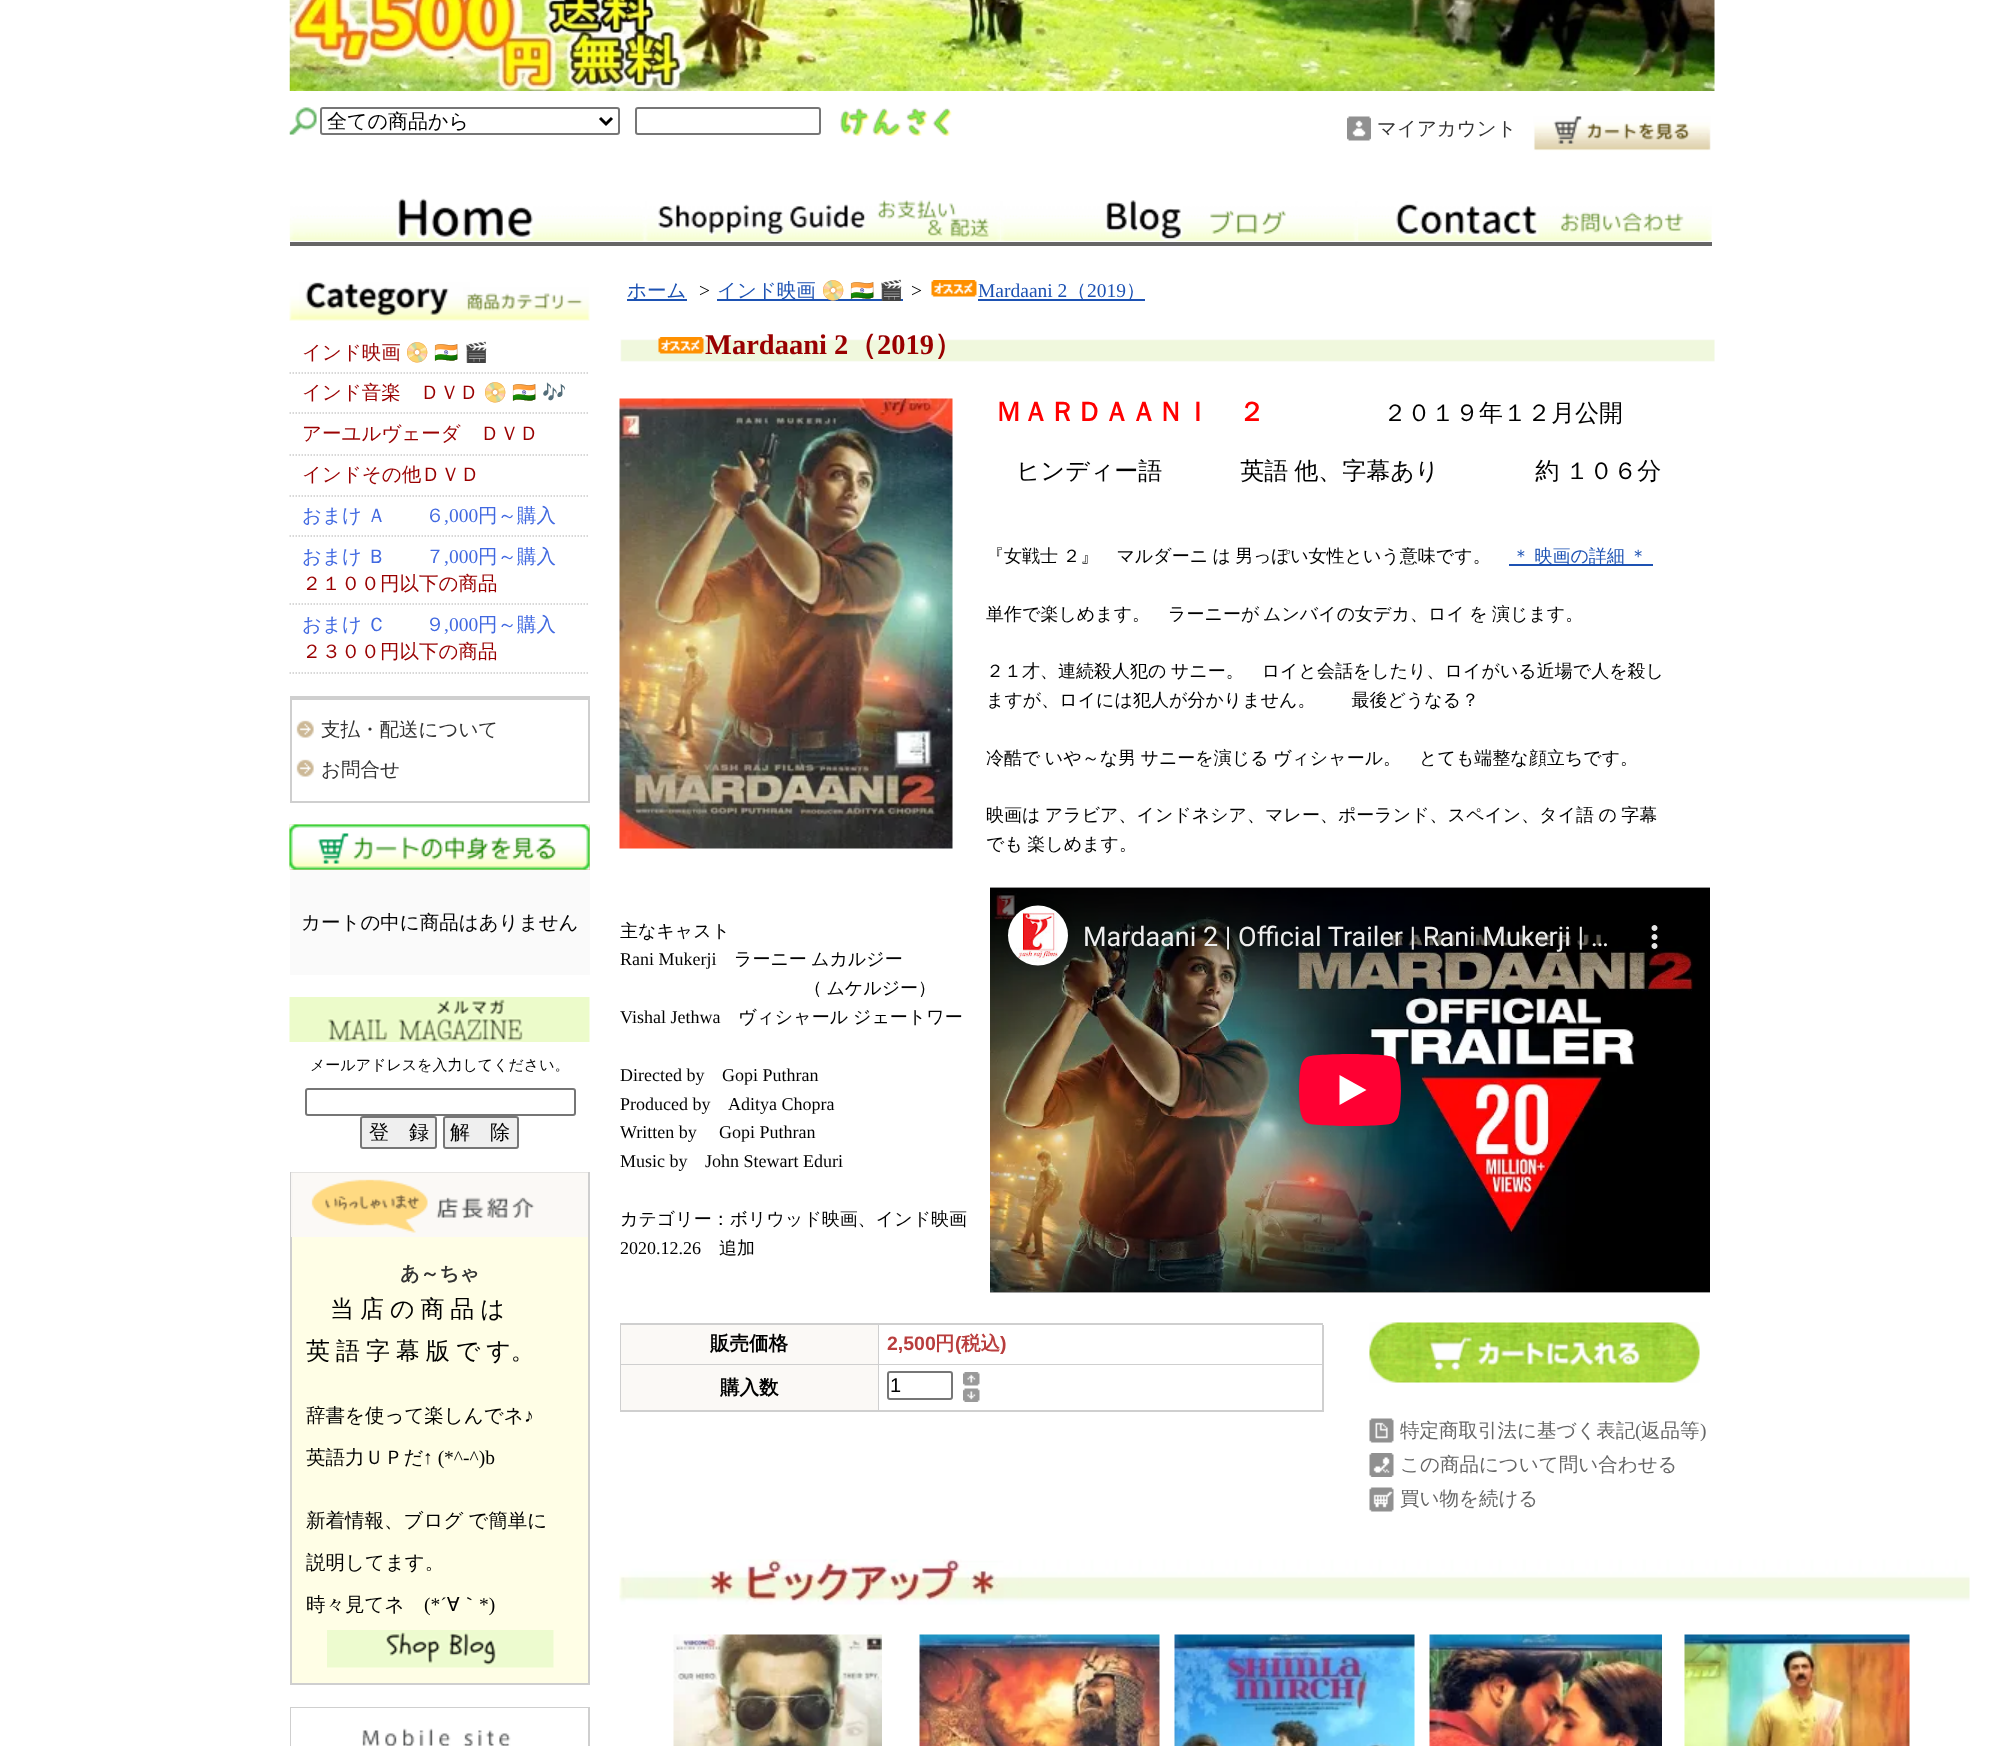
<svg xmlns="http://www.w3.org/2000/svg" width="2003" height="1746">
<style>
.a{font:500 20px WenQuanYi Zen Hei;fill:#000}
.b{font:500 19.5px WenQuanYi Zen Hei;fill:#333}
.c{font:500 19.5px WenQuanYi Zen Hei;fill:#900}
.d{font:19.5px Noto Color Emoji;fill:#900}
.e{font:500 19.5px WenQuanYi Zen Hei;fill:#4169e1}
.f{font:19.5px Liberation Serif;fill:#4169e1}
.g{font:500 19.5px WenQuanYi Zen Hei;fill:#000}
.h{font:500 15px WenQuanYi Zen Hei;fill:#000}
.i{font:bold 19.5px WenQuanYi Zen Hei;fill:#333}
.j{font:500 24px WenQuanYi Zen Hei;fill:#000}
.k{font:19.5px Liberation Serif;fill:#000}
.l{font:500 19.5px WenQuanYi Zen Hei;fill:#1d52b3}
.m{font:19.5px Noto Color Emoji;fill:#1d52b3}
.n{font:19.5px Liberation Serif;fill:#1d52b3}
.o{font:bold 28.5px Liberation Serif;fill:#900}
.p{font:bold 28.5px WenQuanYi Zen Hei;fill:#900}
.q{font:bold 27px WenQuanYi Zen Hei;fill:#f00}
.r{font:500 18px WenQuanYi Zen Hei;fill:#000}
.s{font:500 18px WenQuanYi Zen Hei;fill:#1d52b3}
.t{font:18px Liberation Serif;fill:#000}
.u{font:bold 19.5px WenQuanYi Zen Hei;fill:#000}
.v{font:bold 19.5px Liberation Sans;fill:#b93e3e}
.w{font:bold 19.5px WenQuanYi Zen Hei;fill:#b93e3e}
.x{font:20px Liberation Sans;fill:#000}
.y{font:500 19.5px WenQuanYi Zen Hei;fill:#666}
.z{font:19.5px Liberation Serif;fill:#666}
</style>
<rect width="100%" height="100%" fill="#fff"/>
<image href="1.png" x="289" y="0" width="1426" height="91"/>
<image href="2.png" x="289" y="107" width="28" height="28"/>
<rect fill="none" stroke="#767676" stroke-width="2" x="321" y="108" width="298" height="26" rx="2"/>
<path fill="none" stroke="#000" stroke-width="3" d="M600 118l6 6l6-6"/>
<rect fill="none" stroke="#767676" stroke-width="2" x="636" y="108" width="184" height="26" rx="2"/>
<image href="3.png" x="840" y="107" width="112" height="29"/>
<image href="4.png" x="1347" y="116" width="24" height="25"/>
<image href="5.png" x="1533" y="116" width="178" height="35"/>
<path fill="#666" d="M290 242h1422v4H290z"/>
<image href="6.png" x="289" y="198" width="356" height="43"/>
<image href="7.png" x="645" y="200" width="356" height="41"/>
<image href="8.png" x="1000" y="200" width="358" height="41"/>
<image href="9.png" x="1357" y="203" width="355" height="38"/>
<image href="10.png" x="289" y="282" width="301" height="39"/>
<path fill="none" stroke="#ccc" stroke-width="1.5" stroke-dasharray="1.5 1.5" d="M289.5 373h300"/>
<path fill="none" stroke="#ccc" stroke-width="1.5" stroke-dasharray="1.5 1.5" d="M289.5 413h300"/>
<path fill="none" stroke="#ccc" stroke-width="1.5" stroke-dasharray="1.5 1.5" d="M289.5 455h300"/>
<path fill="none" stroke="#ccc" stroke-width="1.5" stroke-dasharray="1.5 1.5" d="M289.5 496h300"/>
<path fill="none" stroke="#ccc" stroke-width="1.5" stroke-dasharray="1.5 1.5" d="M289.5 536h300"/>
<path fill="none" stroke="#ccc" stroke-width="1.5" stroke-dasharray="1.5 1.5" d="M289.5 604h300"/>
<path fill="none" stroke="#ccc" stroke-width="1.5" stroke-dasharray="1.5 1.5" d="M289.5 673h300"/>
<path fill="none" stroke="#cfcfcf" stroke-width="2" d="M291 697h298v105H291z"/>
<path fill="#cfcfcf" d="M291 698h297v2H291z"/>
<image href="11.png" x="296" y="720" width="18" height="18"/>
<image href="11.png" x="296" y="759" width="18" height="18"/>
<path fill="#ea99b6" d="M290 825h300v45H290z"/>
<image href="12.png" x="289" y="824" width="301" height="46"/>
<image href="13.png" x="289" y="824" width="301" height="46"/>
<path fill="#fafafa" d="M290 870h300v105H290z"/>
<image href="14.png" x="289" y="997" width="301" height="45"/>
<rect fill="none" stroke="#767676" stroke-width="2" x="306" y="1089" width="269" height="26" rx="2"/>
<rect fill="#efefef" stroke="#767676" stroke-width="2" x="361" y="1117" width="75" height="31" rx="2"/>
<rect fill="#efefef" stroke="#767676" stroke-width="2" x="444" y="1117" width="74" height="31" rx="2"/>
<path fill="#fffee6" d="M292 1237h296v446H292z"/>
<path fill="none" stroke="#cfcfcf" stroke-width="2" d="M291 1173h298v511H291z"/>
<image href="15.png" x="291" y="1172" width="297" height="65"/>
<image href="16.png" x="327" y="1630" width="227" height="38"/>
<path fill="none" stroke="#cfcfcf" stroke-width="2" d="M291 1708h298v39H291z"/>
<image href="17.png" x="291" y="1708" width="297" height="38"/>
<path fill="#1d52b3" d="M627 299h60v2H627z"/>
<path fill="#1d52b3" d="M717 299h186v2H717z"/>
<image href="18.png" x="931" y="280" width="46" height="17"/>
<path fill="#1d52b3" d="M978 299h167v2H978z"/>
<image href="19.png" x="620" y="339" width="1095" height="23"/>
<image href="20.png" x="658" y="337" width="46" height="17"/>
<image href="21.png" x="619" y="398" width="334" height="451"/>
<path fill="#1d52b3" d="M1509 564h144v2H1509z"/>
<image href="22.png" x="990" y="887" width="720" height="406"/>
<path fill="#cfcfcf" d="M620 1323h703v2H620z"/>
<path fill="#cfcfcf" d="M620 1323h2v89H620z"/>
<path fill="#fbf9f6" d="M621 1325h257v39H621z"/>
<path fill="#cfcfcf" d="M878 1325h1v87H878z"/>
<path fill="#cfcfcf" d="M621 1364h258v1H621z"/>
<path fill="#cfcfcf" d="M1322 1325h2v87H1322z"/>
<path fill="#cfcfcf" d="M879 1364h444v1H879z"/>
<path fill="#fbf9f6" d="M621 1365h257v45H621z"/>
<path fill="#cfcfcf" d="M621 1410h702v2H621z"/>
<rect fill="none" stroke="#767676" stroke-width="2" x="888" y="1372" width="64" height="27" rx="2"/>
<image href="23.png" x="963" y="1372" width="17" height="14"/>
<image href="24.png" x="963" y="1388" width="17" height="14"/>
<image href="25.png" x="1369" y="1322" width="331" height="61"/>
<image href="26.png" x="1369" y="1418" width="25" height="25"/>
<image href="27.png" x="1369" y="1453" width="25" height="24"/>
<image href="28.png" x="1369" y="1487" width="25" height="25"/>
<image href="29.png" x="619" y="1559" width="1351" height="46"/>
<image href="30.png" x="673" y="1634" width="209" height="112"/>
<image href="31.png" x="919" y="1634" width="241" height="112"/>
<image href="32.png" x="1174" y="1634" width="241" height="112"/>
<image href="33.png" x="1429" y="1634" width="233" height="112"/>
<image href="34.png" x="1684" y="1634" width="226" height="112"/>
<text class="a" x="327" y="128">全ての商品から</text>
<text class="b" x="1377" y="135">マイアカウント</text>
<text class="c" x="302" y="359">インド映画</text>
<text class="d" x="405" y="359">📀</text>
<text class="d" x="434" y="359">🇮🇳</text>
<text class="d" x="464" y="359">🎬</text>
<text class="c" x="302" y="399">インド音楽　ＤＶＤ</text>
<text class="d" x="483" y="399">📀</text>
<text class="d" x="512" y="399">🇮🇳</text>
<text class="d" x="542" y="399">🎶</text>
<text class="c" x="302" y="440">アーユルヴェーダ　ＤＶＤ</text>
<text class="c" x="302" y="481">インドその他ＤＶＤ</text>
<text class="e" x="302" y="522" word-spacing="-1">おまけ Ａ　　６</text>
<text class="f" x="444" y="522">,000</text>
<text class="e" x="478" y="522">円～購入</text>
<text class="e" x="302" y="563" word-spacing="-1">おまけ Ｂ　　７</text>
<text class="f" x="444" y="563">,000</text>
<text class="e" x="478" y="563">円～購入</text>
<text class="c" x="302" y="590">２１００円以下の商品</text>
<text class="e" x="302" y="631" word-spacing="-1">おまけ Ｃ　　９</text>
<text class="f" x="444" y="631">,000</text>
<text class="e" x="478" y="631">円～購入</text>
<text class="c" x="302" y="658">２３００円以下の商品</text>
<text class="b" x="321" y="736">支払・配送について</text>
<text class="b" x="321" y="776">お問合せ</text>
<text class="g" x="301" y="929">カートの中に商品はありません</text>
<text class="h" x="310" y="1070">メールアドレスを入力してください。</text>
<text class="a" x="369" y="1139">登　録</text>
<text class="a" x="450" y="1139">解　除</text>
<text class="i" x="400" y="1280">あ～ちゃ</text>
<text class="j" x="330" y="1317" word-spacing="-1.25">当 店 の 商 品 は</text>
<text class="j" x="306" y="1359" word-spacing="-1.25">英 語 字 幕 版 で す。</text>
<text class="g" x="306" y="1422">辞書を使って楽しんでネ</text>
<text class="k" x="524" y="1422">♪</text>
<text class="g" x="306" y="1464">英語力ＵＰだ</text>
<text class="k" x="423" y="1464">↑ (*^-^)b</text>
<text class="g" x="306" y="1527" word-spacing="-1">新着情報、ブログ で簡単に</text>
<text class="g" x="306" y="1569">説明してます。</text>
<text class="g" x="306" y="1611">時々見てネ</text>
<text class="k" x="424" y="1611">(*´</text>
<text class="g" x="447" y="1611">∀｀</text>
<text class="k" x="479" y="1611">*)</text>
<text class="l" x="627" y="297">ホーム</text>
<text class="k" x="699" y="297">&gt;</text>
<text class="l" x="717" y="297">インド映画</text>
<text class="m" x="821" y="297">📀</text>
<text class="m" x="850" y="297">🇮🇳</text>
<text class="m" x="879" y="297">🎬</text>
<text class="k" x="911" y="297">&gt;</text>
<text class="n" x="978" y="297">Mardaani 2</text>
<text class="l" x="1067" y="297">（</text>
<text class="n" x="1087" y="297">2019</text>
<text class="l" x="1126" y="297">）</text>
<text class="o" x="705" y="354">Mardaani 2</text>
<text class="p" x="848" y="354">（</text>
<text class="o" x="877" y="354">2019</text>
<text class="p" x="934" y="354">）</text>
<text class="q" x="995" y="421">ＭＡＲＤＡＡＮＩ　２</text>
<text class="j" x="1383" y="421">２０１９年１２月公開</text>
<text class="j" x="1016" y="479" word-spacing="-1.25">ヒンディー語　　 　英語 他、字幕あり　　　　約 １０６分</text>
<text class="r" x="986" y="562" word-spacing="-1">『女戦士 ２』　マルダーニ は 男っぽい女性という意味です。</text>
<text class="s" x="1512" y="562" word-spacing="-1">＊ 映画の詳細 ＊</text>
<text class="r" x="986" y="620">単作で楽しめます。　ラーニーが</text>
<text class="r" x="1263" y="620" word-spacing="-1">ムンバイの女デカ、ロイ を 演じます。</text>
<text class="r" x="986" y="677" word-spacing="-1">２１才、連続殺人犯の サニー。　ロイと会話をしたり、ロイがいる近場で人を殺し</text>
<text class="r" x="986" y="706">ますが、ロイには犯人が分かりません。　　最後どうなる？</text>
<text class="r" x="986" y="764" word-spacing="-1">冷酷で いや～な男 サニーを演じる ヴィシャール。　とても端整な顔立ちです。</text>
<text class="r" x="986" y="821" word-spacing="-1">映画は アラビア、インドネシア、マレー、ポーランド、スペイン、タイ語 の 字幕</text>
<text class="r" x="986" y="850" word-spacing="-1">でも 楽しめます。</text>
<text class="r" x="620" y="937">主なキャスト</text>
<text class="t" x="620" y="965">Rani Mukerji</text>
<text class="r" x="734" y="965">ラーニー</text>
<text class="r" x="811" y="965">ムカルジー</text>
<text class="r" x="804" y="994" word-spacing="-1">（ ムケルジー）</text>
<text class="t" x="620" y="1023">Vishal Jethwa</text>
<text class="r" x="738" y="1023">ヴィシャール</text>
<text class="r" x="853" y="1023">ジェートワー</text>
<text class="t" x="620" y="1081">Directed by</text>
<text class="t" x="722" y="1081">Gopi Puthran</text>
<text class="t" x="620" y="1110">Produced by</text>
<text class="t" x="728" y="1110">Aditya Chopra</text>
<text class="t" x="620" y="1138">Written by</text>
<text class="t" x="719" y="1138">Gopi Puthran</text>
<text class="t" x="620" y="1167">Music by</text>
<text class="t" x="705" y="1167">John Stewart Eduri</text>
<text class="r" x="620" y="1225">カテゴリー：ボリウッド映画、インド映画</text>
<text class="t" x="620" y="1254">2020.12.26</text>
<text class="r" x="719" y="1254">追加</text>
<text class="u" x="710" y="1350">販売価格</text>
<text class="v" x="887" y="1350">2,500</text>
<text class="w" x="935" y="1350">円</text>
<text class="v" x="955" y="1350">(</text>
<text class="w" x="961" y="1350">税込</text>
<text class="v" x="1000" y="1350">)</text>
<text class="u" x="720" y="1394">購入数</text>
<text class="x" x="890" y="1392">1</text>
<text class="y" x="1400" y="1437">特定商取引法に基づく表記</text>
<text class="z" x="1635" y="1437">(</text>
<text class="y" x="1641" y="1437">返品等</text>
<text class="z" x="1700" y="1437">)</text>
<text class="y" x="1400" y="1471">この商品について問い合わせる</text>
<text class="y" x="1400" y="1505">買い物を続ける</text>
</svg>
